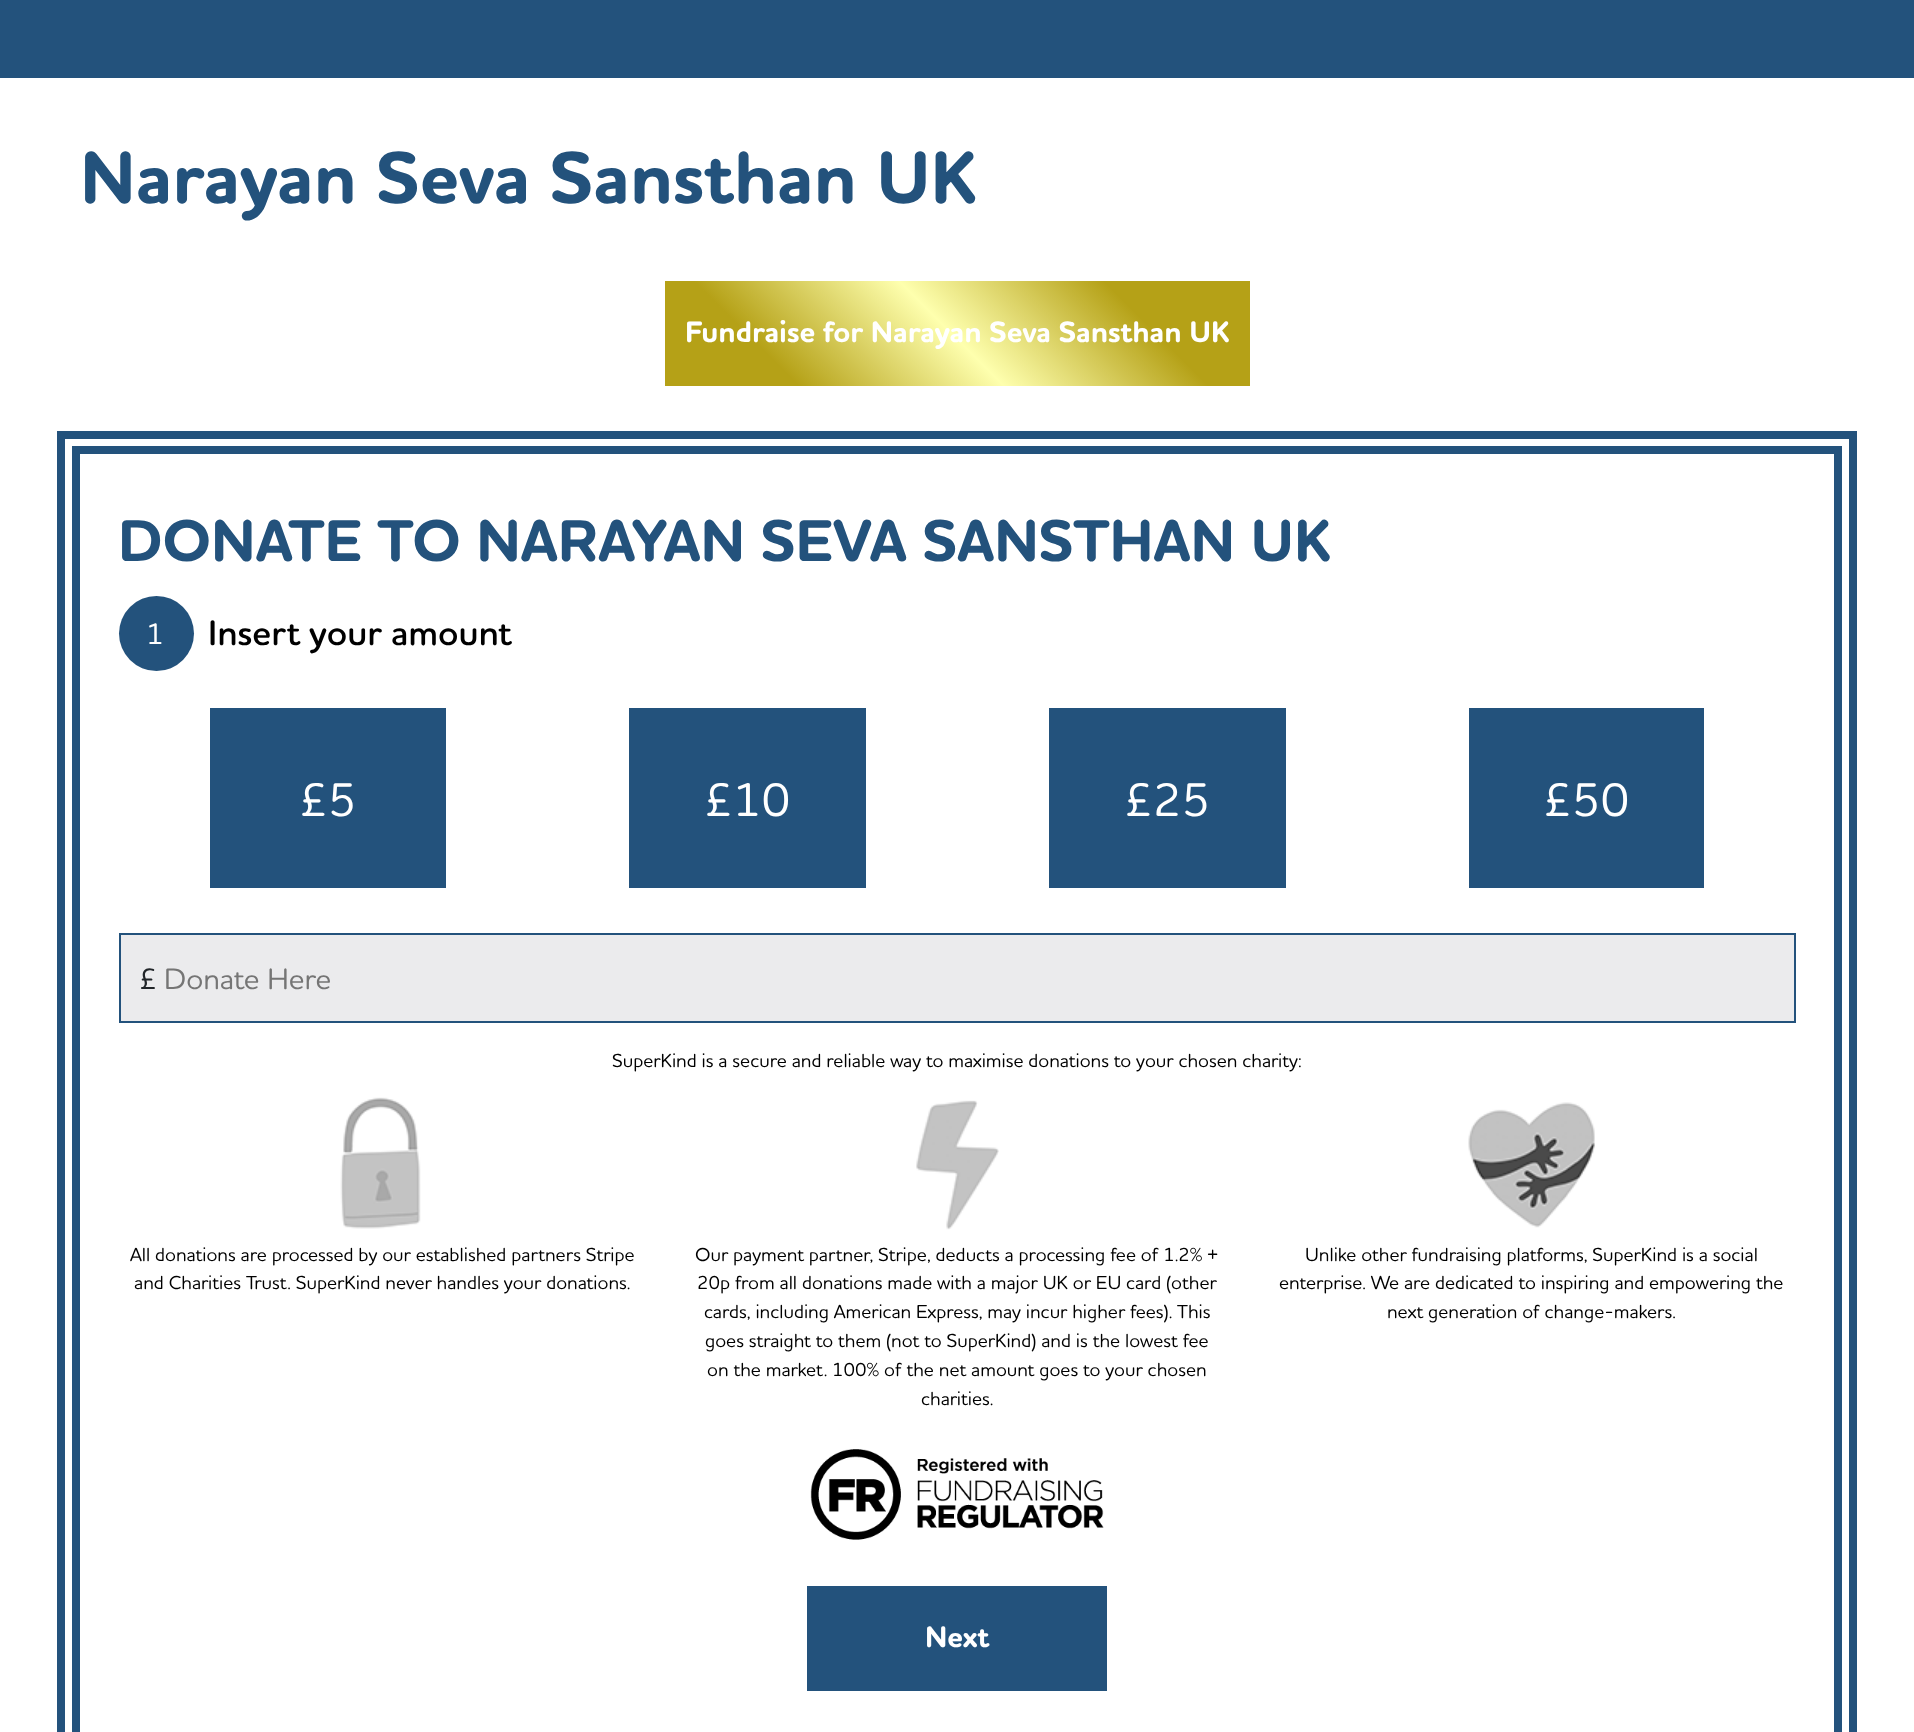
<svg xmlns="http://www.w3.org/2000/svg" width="1914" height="1732">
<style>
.a{font:bold 75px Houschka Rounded;fill:#23527c}
.b{font:bold 30px Houschka Rounded;fill:#fff}
.c{font:bold 60px Houschka Rounded;fill:#23527c}
.d{font:500 30px Houschka Rounded;fill:#fff}
.e{font:600 36px Houschka Rounded;fill:#000}
.f{font:500 48px Houschka Rounded;fill:#fff}
.g{font:500 30px Houschka Rounded;fill:#212529}
.h{font:500 30px Houschka Rounded;fill:#757575}
.i{font:500 19.2px Houschka Rounded;fill:#000}
</style>
<defs>
<linearGradient id="g1" gradientUnits="userSpaceOnUse" x1="780" y1="504" x2="1122" y2="162"><stop offset="0.2" stop-color="#b5a117"/><stop offset="0.5" stop-color="#feffae"/><stop offset="0.8" stop-color="#b5a117"/></linearGradient>
</defs>
<rect width="100%" height="100%" fill="#fff"/>
<path fill="#23527c" d="M0 0h1914v78H0z"/>
<path fill="#b5a117" d="M1241 281h9v105H1241z"/>
<path fill="url(#g1)" d="M665 281h576v105H665z"/>
<path fill="none" stroke="#23527c" stroke-width="8" d="M61 435h1792v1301H61z"/>
<path fill="none" stroke="#23527c" stroke-width="8" d="M76 450h1762v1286H76z"/>
<circle fill="#23527c" cx="156.5" cy="633.5" r="37.5"/>
<path fill="#23527c" d="M210 708h236v180H210z"/>
<path fill="#23527c" d="M629 708h237v180H629z"/>
<path fill="#23527c" d="M1049 708h237v180H1049z"/>
<path fill="#23527c" d="M1469 708h235v180H1469z"/>
<path fill="#ebebed" stroke="#23527c" stroke-width="2" d="M120 934h1675v88H120z"/>
<image href="1.png" x="340" y="1097" width="81" height="132"/>
<image href="2.png" x="916" y="1100" width="83" height="130"/>
<image href="3.png" x="1468" y="1102" width="127" height="126"/>
<image href="4.png" x="810" y="1449" width="294" height="91"/>
<path fill="#23527c" d="M807 1586h300v105H807z"/>
<text class="a" x="80" y="203">Narayan Seva Sansthan UK</text>
<text class="b" x="685" y="342">Fundraise for Narayan Seva Sansthan UK</text>
<text class="c" x="118" y="561">DONATE TO NARAYAN SEVA SANSTHAN UK</text>
<text class="d" x="146" y="644">1</text>
<text class="e" x="208" y="645">Insert your amount</text>
<text class="f" x="299" y="816">£5</text>
<text class="f" x="704" y="816">£10</text>
<text class="f" x="1124" y="816">£25</text>
<text class="f" x="1543" y="816">£50</text>
<text class="g" x="139" y="989">£</text>
<text class="h" x="164" y="989">Donate Here</text>
<text class="i" x="612" y="1067">SuperKind is a secure and reliable way to maximise donations to your chosen charity:</text>
<text class="i" x="130" y="1261">All donations are processed by our established partners Stripe</text>
<text class="i" x="134" y="1289">and Charities Trust. SuperKind never handles your donations.</text>
<text class="i" x="695" y="1261">Our payment partner, Stripe, deducts a processing fee of 1.2% +</text>
<text class="i" x="697" y="1289">20p from all donations made with a major UK or EU card (other</text>
<text class="i" x="704" y="1318">cards, including American Express, may incur higher fees). This</text>
<text class="i" x="705" y="1347">goes straight to them (not to SuperKind) and is the lowest fee</text>
<text class="i" x="707" y="1376">on the market. 100% of the net amount goes to your chosen</text>
<text class="i" x="921" y="1405">charities.</text>
<text class="i" x="1305" y="1261">Unlike other fundraising platforms, SuperKind is a social</text>
<text class="i" x="1279" y="1289">enterprise. We are dedicated to inspiring and empowering the</text>
<text class="i" x="1387" y="1318">next generation of change-makers.</text>
<text class="b" x="925" y="1647">Next</text>
</svg>
